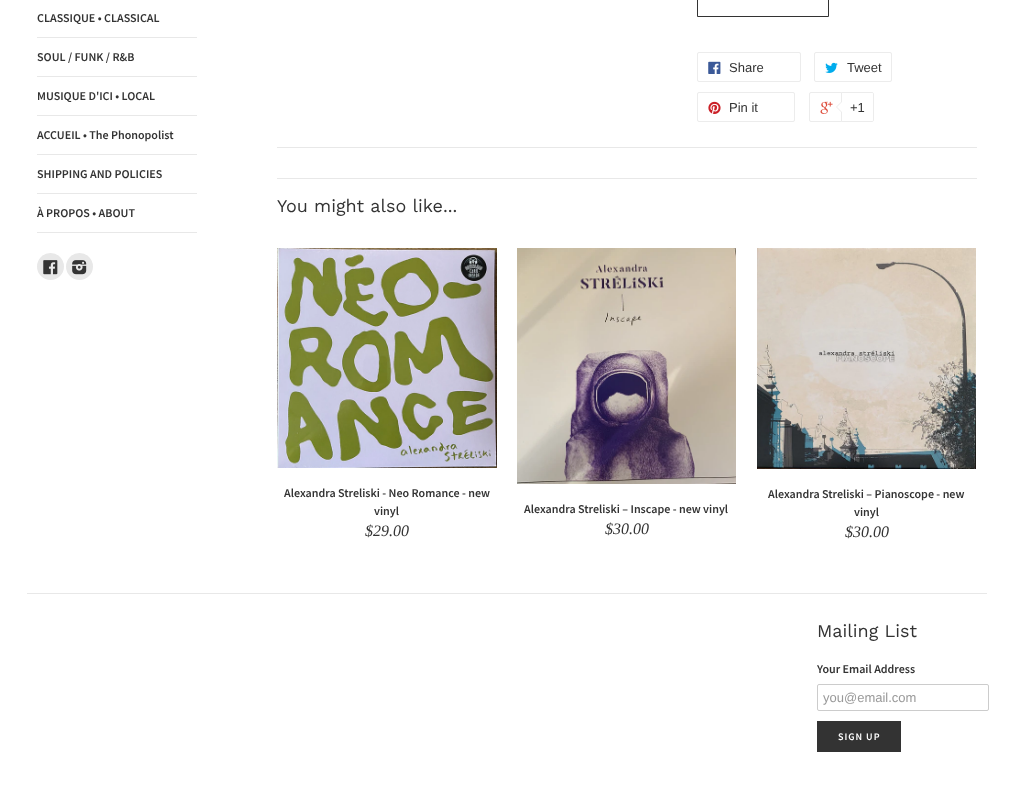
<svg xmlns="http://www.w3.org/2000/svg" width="1013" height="805">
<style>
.a{font:600 12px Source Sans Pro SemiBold;fill:#333}
.b{font:13px Liberation Sans;fill:#333}
.c{font:18px Work Sans;fill:#333}
.d{font:italic 16px Liberation Serif;fill:#333}
.e{font:13px Liberation Sans;fill:#999}
.f{font:600 10px Source Sans Pro SemiBold;letter-spacing:1px;fill:#fff}
</style>
<rect width="100%" height="100%" fill="#fff"/>
<path fill="#e8e8e8" d="M37 232h160v1H37z"/>
<path fill="#e8e8e8" d="M37 37h160v1H37z"/>
<path fill="#e8e8e8" d="M37 76h160v1H37z"/>
<path fill="#e8e8e8" d="M37 115h160v1H37z"/>
<path fill="#e8e8e8" d="M37 154h160v1H37z"/>
<path fill="#e8e8e8" d="M37 193h160v1H37z"/>
<circle fill="#e8e8e8" cx="50.5" cy="266.5" r="13.5"/>
<image href="1.png" x="43" y="260" width="15" height="15"/>
<circle fill="#e8e8e8" cx="79.5" cy="266.5" r="13.5"/>
<image href="2.png" x="72" y="260" width="15" height="15"/>
<path fill="none" stroke="#333" d="M697.5 -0.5h131v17H697.5z"/>
<rect fill="none" stroke="#ececec" x="697.5" y="52.5" width="103" height="29" rx="1.5"/>
<image href="3.png" x="708" y="61" width="13" height="13"/>
<rect fill="none" stroke="#ececec" x="814.5" y="52.5" width="77" height="29" rx="1.5"/>
<image href="4.png" x="825" y="62" width="13" height="11"/>
<rect fill="none" stroke="#ececec" x="697.5" y="92.5" width="97" height="29" rx="1.5"/>
<image href="5.png" x="708" y="101" width="13" height="13"/>
<rect fill="none" stroke="#ececec" x="809.5" y="92.5" width="63" height="29" rx="1.5"/>
<image href="6.png" x="820" y="101" width="13" height="13"/>
<path fill="#fff" stroke="#ececec" d="M841.5 92.5h30.5c1 0 1.5 .5 1.5 1.5v26c0 1-.5 1.5-1.5 1.5h-30.5z"/>
<path fill="#ececec" d="M842 101v12l-6-6z"/>
<path fill="#fff" d="M843 101v12l-6-6z"/>
<path fill="#e8e8e8" d="M277 147h700v1H277z"/>
<path fill="#e8e8e8" d="M277 178h700v1H277z"/>
<image href="7.png" x="277" y="248" width="220" height="220"/>
<image href="8.png" x="517" y="248" width="219" height="236"/>
<image href="9.png" x="757" y="248" width="219" height="221"/>
<path fill="#e8e8e8" d="M27 593h960v1H27z"/>
<rect fill="none" stroke="#ccc" x="817.5" y="684.5" width="171" height="26" rx="1.5"/>
<path fill="#333" d="M817 721h84v31H817z"/>
<text class="a" x="37" y="22">CLASSIQUE • CLASSICAL</text>
<text class="a" x="37" y="61">SOUL / FUNK / R&amp;B</text>
<text class="a" x="37" y="100">MUSIQUE D'ICI • LOCAL</text>
<text class="a" x="37" y="139">ACCUEIL • The Phonopolist</text>
<text class="a" x="37" y="178">SHIPPING AND POLICIES</text>
<text class="a" x="37" y="217">À PROPOS • ABOUT</text>
<text class="b" x="729" y="72">Share</text>
<text class="b" x="847" y="72">Tweet</text>
<text class="b" x="729" y="112">Pin it</text>
<text class="b" x="850" y="112">+1</text>
<text class="c" x="277" y="212">You might also like...</text>
<text class="a" x="284" y="497">Alexandra Streliski - Neo Romance - new</text>
<text class="a" x="374" y="515">vinyl</text>
<text class="d" x="365" y="536">$29.00</text>
<text class="a" x="524" y="513">Alexandra Streliski – Inscape - new vinyl</text>
<text class="d" x="605" y="534">$30.00</text>
<text class="a" x="768" y="498">Alexandra Streliski – Pianoscope - new</text>
<text class="a" x="854" y="516">vinyl</text>
<text class="d" x="845" y="537">$30.00</text>
<text class="c" x="817" y="637">Mailing List</text>
<text class="a" x="817" y="673">Your Email Address</text>
<text class="e" x="823" y="702">you@email.com</text>
<text class="f" x="838" y="740">SIGN UP</text>
</svg>
